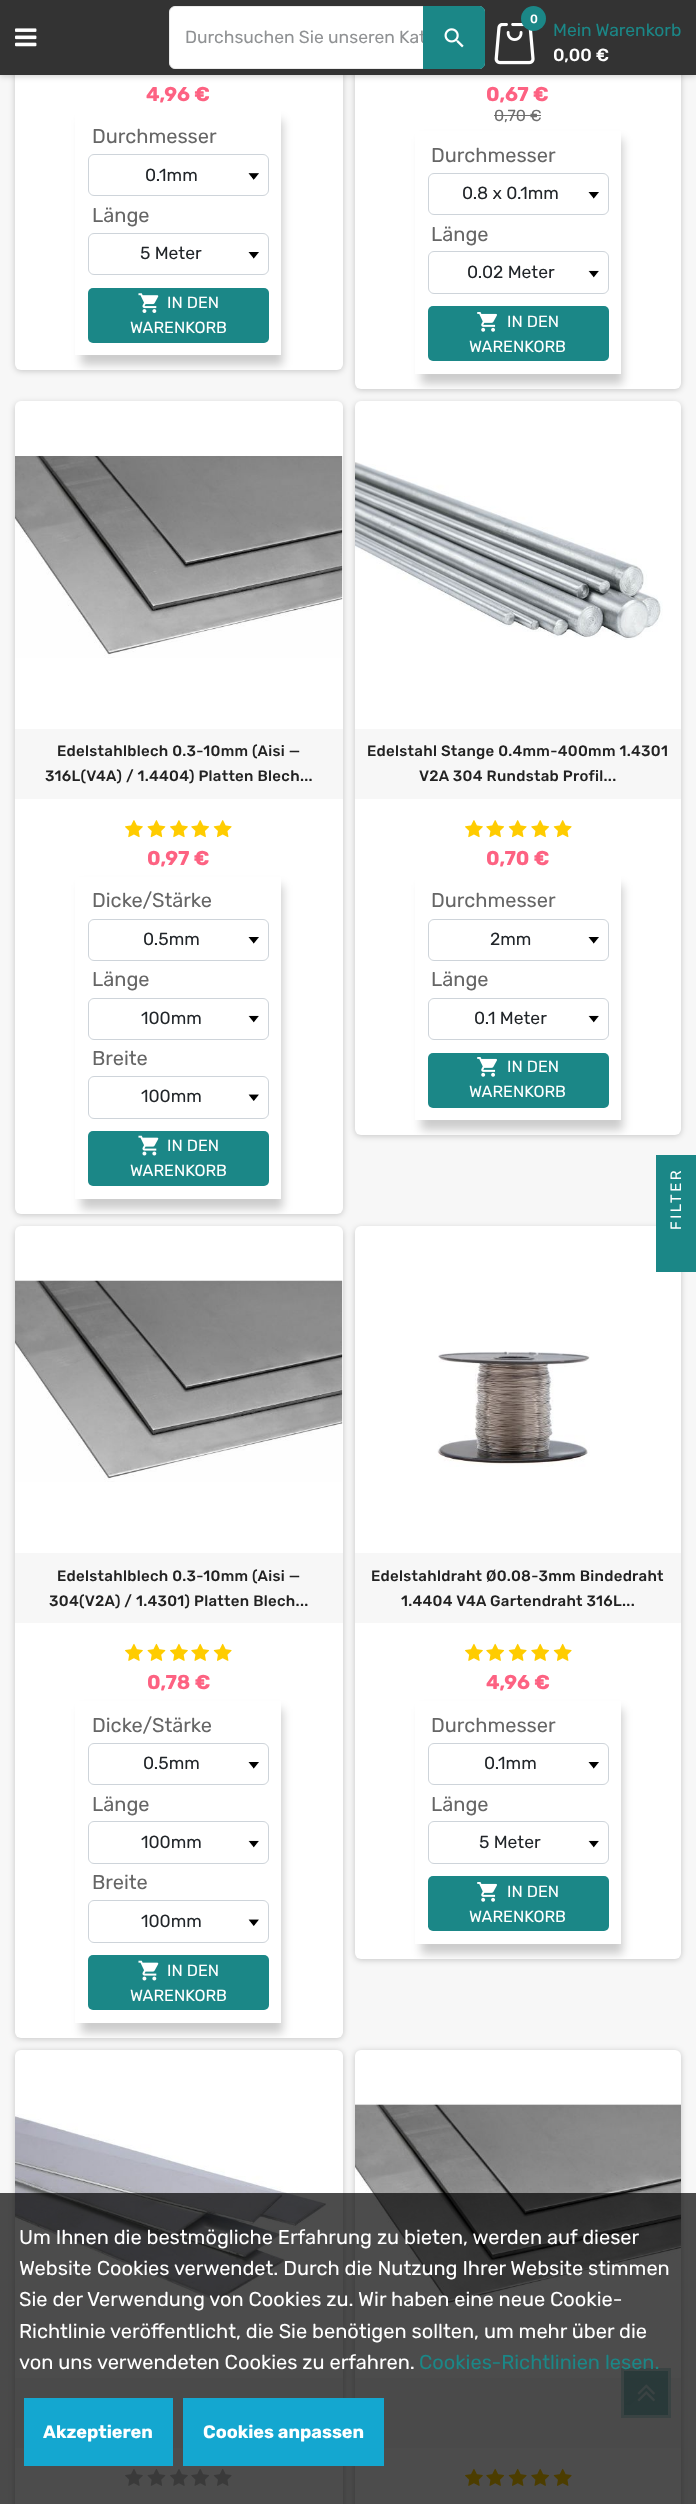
<svg xmlns="http://www.w3.org/2000/svg" width="696" height="2504">
<style>
.a{font:17.5px Rubik;fill:#909294}
.b{font:500 12px Rubik;fill:#fff}
.c{font:17.5px Rubik;fill:#1b8787}
.d{font:500 17.5px Rubik;fill:#fff}
.e{font:bold 20px Rubik;fill:#fd6282}
.f{font:20px Rubik;fill:#666}
.g{font:17.5px Rubik;fill:#212529}
.h{font:16.25px Rubik;fill:#fff}
.i{font:16px Rubik;fill:#6f6f6f}
.j{font:500 15px Rubik;letter-spacing:0.3px;fill:#222}
.k{font:15px Rubik;letter-spacing:2.5px;fill:#fff}
.l{font:20px Rubik;fill:#fff}
.m{font:20px Rubik;fill:#1b8787}
.n{font:bold 18px Rubik;fill:#fff}
</style>
<defs>
<clipPath id="clip1"><rect x="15" y="-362" width="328" height="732" rx="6"/></clipPath>
<clipPath id="clip2"><path d="M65 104h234v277h-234zm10 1h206v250h-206z" clip-rule="evenodd"/></clipPath>
<clipPath id="clip3"><rect x="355" y="-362" width="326" height="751" rx="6"/></clipPath>
<clipPath id="clip4"><rect x="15" y="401" width="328" height="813" rx="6"/></clipPath>
<clipPath id="clip5"><rect x="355" y="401" width="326" height="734" rx="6"/></clipPath>
<clipPath id="clip6"><path d="M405 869h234v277h-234zm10 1h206v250h-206z" clip-rule="evenodd"/></clipPath>
<clipPath id="clip7"><rect x="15" y="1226" width="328" height="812" rx="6"/></clipPath>
<clipPath id="clip8"><rect x="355" y="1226" width="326" height="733" rx="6"/></clipPath>
</defs>
<rect width="100%" height="100%" fill="#f7f7f7"/>
<rect fill="#00000033" filter="blur(3px)" x="15" y="-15" width="328" height="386" rx="6"/>
<rect fill="#fff" x="15" y="-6" width="328" height="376" rx="6"/>
<rect fill="#00000033" filter="blur(3px)" x="355" y="-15" width="326" height="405" rx="6"/>
<rect fill="#fff" x="355" y="-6" width="326" height="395" rx="6"/>
<path fill="#00000033" filter="blur(3px)" d="M0 1h696v75H0z"/>
<path fill="#333" d="M0 0h696v75H0z"/>
<rect fill="#fff" stroke="#ebebeb" x="169.5" y="6.5" width="315" height="62" rx="5.5"/>
<image href="2.png" x="15" y="28" width="22" height="19"/>
<image href="3.png" x="494" y="23" width="41" height="42"/>
<circle fill="#1b8787" cx="533.5" cy="18.5" r="12.5"/>
<g clip-path="url(#clip1)">
<g clip-path="url(#clip2)">
<path fill="#00000033" filter="blur(5px)" d="M81 120h202v245H81z"/>
</g>
</g>
<image href="4.png" x="248" y="173" width="11" height="7"/>
<rect fill="none" stroke="#ced4da" x="88.5" y="154.5" width="180" height="41" rx="5.5"/>
<image href="5.png" x="248" y="252" width="11" height="7"/>
<rect fill="none" stroke="#ced4da" x="88.5" y="233.5" width="180" height="41" rx="5.5"/>
<rect fill="#1b8787" x="88" y="288" width="181" height="55" rx="5"/>
<image href="6.png" x="138" y="293" width="21" height="20"/>
<path fill="#6f6f6f" d="M494 115h47v1H494z"/>
<g clip-path="url(#clip3)">
<path fill="#00000033" filter="blur(5px)" d="M421 139h202v245H421z"/>
</g>
<path fill="#fff" d="M415 131h206v243H415z"/>
<image href="5.png" x="588" y="192" width="11" height="7"/>
<rect fill="none" stroke="#ced4da" x="428.5" y="173.5" width="180" height="41" rx="5.5"/>
<image href="7.png" x="588" y="270" width="11" height="8"/>
<rect fill="none" stroke="#ced4da" x="428.5" y="251.5" width="180" height="42" rx="5.5"/>
<rect fill="#1b8787" x="428" y="306" width="181" height="55" rx="5"/>
<image href="8.png" x="477" y="312" width="20" height="20"/>
<rect fill="#00000033" filter="blur(3px)" x="15" y="403" width="328" height="812" rx="6"/>
<rect fill="#fff" x="15" y="401" width="328" height="813" rx="6"/>
<image href="9.png" x="15" y="455" width="328" height="203"/>
<path fill="#f7f7f7" d="M15 729h328v70H15z"/>
<image href="10.png" x="125" y="820" width="18" height="18"/>
<image href="11.png" x="147" y="820" width="19" height="18"/>
<image href="10.png" x="170" y="820" width="18" height="18"/>
<image href="12.png" x="191" y="820" width="19" height="18"/>
<image href="13.png" x="213" y="820" width="19" height="18"/>
<g clip-path="url(#clip4)">
<path fill="#00000033" filter="blur(5px)" d="M81 885h202v324H81z"/>
</g>
<path fill="#fff" d="M75 877h206v322H75z"/>
<image href="5.png" x="248" y="937" width="11" height="7"/>
<rect fill="none" stroke="#ced4da" x="88.5" y="919.5" width="180" height="41" rx="5.5"/>
<image href="7.png" x="248" y="1015" width="11" height="8"/>
<rect fill="none" stroke="#ced4da" x="88.5" y="998.5" width="180" height="41" rx="5.5"/>
<image href="14.png" x="248" y="1094" width="11" height="7"/>
<rect fill="none" stroke="#ced4da" x="88.5" y="1076.5" width="180" height="42" rx="5.5"/>
<rect fill="#1b8787" x="88" y="1131" width="181" height="55" rx="5"/>
<image href="15.png" x="138" y="1135" width="21" height="21"/>
<rect fill="#00000033" filter="blur(3px)" x="355" y="403" width="326" height="733" rx="6"/>
<rect fill="#fff" x="355" y="401" width="326" height="734" rx="6"/>
<image href="16.png" x="355" y="462" width="308" height="178"/>
<path fill="#f7f7f7" d="M355 729h326v70H355z"/>
<image href="10.png" x="465" y="820" width="18" height="18"/>
<image href="12.png" x="486" y="820" width="19" height="18"/>
<image href="13.png" x="508" y="820" width="19" height="18"/>
<image href="12.png" x="531" y="820" width="19" height="18"/>
<image href="13.png" x="553" y="820" width="19" height="18"/>
<g clip-path="url(#clip5)">
<g clip-path="url(#clip6)">
<path fill="#00000033" filter="blur(5px)" d="M421 885h202v245H421z"/>
</g>
</g>
<image href="5.png" x="588" y="937" width="11" height="7"/>
<rect fill="none" stroke="#ced4da" x="428.5" y="919.5" width="180" height="41" rx="5.5"/>
<image href="7.png" x="588" y="1015" width="11" height="8"/>
<rect fill="none" stroke="#ced4da" x="428.5" y="998.5" width="180" height="41" rx="5.5"/>
<rect fill="#1b8787" x="428" y="1053" width="181" height="55" rx="5"/>
<image href="8.png" x="477" y="1057" width="20" height="20"/>
<rect fill="#00000033" filter="blur(3px)" x="15" y="1228" width="328" height="811" rx="6"/>
<rect fill="#fff" x="15" y="1226" width="328" height="812" rx="6"/>
<image href="17.png" x="15" y="1280" width="328" height="202"/>
<path fill="#f7f7f7" d="M15 1553h328v70H15z"/>
<image href="18.png" x="125" y="1643" width="18" height="18"/>
<image href="19.png" x="147" y="1643" width="19" height="18"/>
<image href="18.png" x="170" y="1643" width="18" height="18"/>
<image href="20.png" x="191" y="1643" width="19" height="18"/>
<image href="21.png" x="213" y="1643" width="19" height="18"/>
<g clip-path="url(#clip7)">
<path fill="#00000033" filter="blur(5px)" d="M81 1709h202v324H81z"/>
</g>
<path fill="#fff" d="M75 1701h206v322H75z"/>
<image href="5.png" x="248" y="1762" width="11" height="7"/>
<rect fill="none" stroke="#ced4da" x="88.5" y="1743.5" width="180" height="41" rx="5.5"/>
<image href="7.png" x="248" y="1840" width="11" height="8"/>
<rect fill="none" stroke="#ced4da" x="88.5" y="1821.5" width="180" height="42" rx="5.5"/>
<image href="14.png" x="248" y="1919" width="11" height="7"/>
<rect fill="none" stroke="#ced4da" x="88.5" y="1900.5" width="180" height="42" rx="5.5"/>
<rect fill="#1b8787" x="88" y="1955" width="181" height="55" rx="5"/>
<image href="15.png" x="138" y="1960" width="21" height="21"/>
<rect fill="#00000033" filter="blur(3px)" x="355" y="1228" width="326" height="732" rx="6"/>
<rect fill="#fff" x="355" y="1226" width="326" height="733" rx="6"/>
<image href="22.png" x="437" y="1351" width="153" height="116"/>
<path fill="#f7f7f7" d="M355 1553h326v70H355z"/>
<image href="18.png" x="465" y="1643" width="18" height="18"/>
<image href="20.png" x="486" y="1643" width="19" height="18"/>
<image href="21.png" x="508" y="1643" width="19" height="18"/>
<image href="20.png" x="531" y="1643" width="19" height="18"/>
<image href="21.png" x="553" y="1643" width="19" height="18"/>
<g clip-path="url(#clip8)">
<path fill="#00000033" filter="blur(5px)" d="M421 1709h202v245H421z"/>
</g>
<path fill="#fff" d="M415 1701h206v243H415z"/>
<image href="5.png" x="588" y="1762" width="11" height="7"/>
<rect fill="none" stroke="#ced4da" x="428.5" y="1743.5" width="180" height="41" rx="5.5"/>
<image href="7.png" x="588" y="1840" width="11" height="8"/>
<rect fill="none" stroke="#ced4da" x="428.5" y="1821.5" width="180" height="42" rx="5.5"/>
<rect fill="#1b8787" x="428" y="1876" width="181" height="55" rx="5"/>
<image href="8.png" x="477" y="1882" width="20" height="20"/>
<rect fill="#00000033" filter="blur(3px)" x="15" y="2051" width="328" height="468" rx="6"/>
<rect fill="#fff" x="15" y="2050" width="328" height="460" rx="6"/>
<image href="23.png" x="15" y="2114" width="313" height="188"/>
<path fill="#f7f7f7" d="M15 2378h328v70H15z"/>
<image href="24.png" x="125" y="2469" width="18" height="17"/>
<image href="25.png" x="147" y="2469" width="19" height="17"/>
<image href="24.png" x="170" y="2469" width="18" height="17"/>
<image href="26.png" x="191" y="2469" width="18" height="17"/>
<image href="27.png" x="213" y="2469" width="19" height="17"/>
<rect fill="#00000033" filter="blur(3px)" x="355" y="2051" width="326" height="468" rx="6"/>
<rect fill="#fff" x="355" y="2050" width="326" height="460" rx="6"/>
<image href="28.png" x="355" y="2103" width="326" height="202"/>
<path fill="#f7f7f7" d="M355 2378h326v70H355z"/>
<image href="18.png" x="465" y="2468" width="18" height="18"/>
<image href="20.png" x="486" y="2468" width="19" height="18"/>
<image href="21.png" x="508" y="2468" width="19" height="18"/>
<image href="20.png" x="531" y="2468" width="19" height="18"/>
<image href="21.png" x="553" y="2468" width="19" height="18"/>
<path fill="#1b8787" d="M656 1155h40v117H656z"/>
<path fill="#1b878780" d="M621 2368h50v50H621z"/>
<image href="29.png" x="622" y="2400" width="16" height="5"/>
<path fill="none" stroke="#ffffff80" stroke-width="3" d="M622.5 2369.5h47v47H622.5z"/>
<image href="30.png" x="637" y="2384" width="18" height="18"/>
<path fill="#000000b3" d="M0 2193h696v311H0z"/>
<path fill="#14a7d0" d="M24 2398h149v68H24z"/>
<path fill="#14a7d0" d="M183 2398h201v68H183z"/>
<text class="a" x="185" y="43">Durchsuchen Sie unseren Kat</text>
<path fill="#1b8787" d="M423 6h56c3.5 0 6 2.5 6 6v51c0 3.5-2.5 6-6 6h-56z"/>
<image href="1.png" x="444" y="28" width="20" height="20"/>
<text class="b" x="530" y="23">0</text>
<text class="c" x="553" y="36">Mein Warenkorb</text>
<text class="d" x="553" y="61">0,00 €</text>
<text class="e" x="146" y="101">4,96 €</text>
<text class="f" x="92" y="143">Durchmesser</text>
<text class="g" x="145" y="181">0.1mm</text>
<text class="f" x="92" y="222">Länge</text>
<text class="g" x="140" y="259">5 Meter</text>
<text class="h" x="167" y="308">IN DEN</text>
<text class="h" x="130" y="333">WARENKORB</text>
<text class="e" x="486" y="101">0,67 €</text>
<text class="i" x="494" y="121">0,70 €</text>
<text class="f" x="431" y="162">Durchmesser</text>
<text class="g" x="462" y="199">0.8 x 0.1mm</text>
<text class="f" x="431" y="241">Länge</text>
<text class="g" x="467" y="278">0.02 Meter</text>
<text class="h" x="507" y="327">IN DEN</text>
<text class="h" x="469" y="352">WARENKORB</text>
<text class="j" x="57" y="756">Edelstahlblech 0.3-10mm (Aisi —</text>
<text class="j" x="45" y="781">316L(V4A) / 1.4404) Platten Blech...</text>
<text class="e" x="147" y="865">0,97 €</text>
<text class="f" x="92" y="907">Dicke/Stärke</text>
<text class="g" x="143" y="945">0.5mm</text>
<text class="f" x="92" y="986">Länge</text>
<text class="g" x="141" y="1024">100mm</text>
<text class="f" x="92" y="1065">Breite</text>
<text class="g" x="141" y="1102">100mm</text>
<text class="h" x="167" y="1151">IN DEN</text>
<text class="h" x="130" y="1176">WARENKORB</text>
<text class="j" x="367" y="756">Edelstahl Stange 0.4mm-400mm 1.4301</text>
<text class="j" x="419" y="781">V2A 304 Rundstab Profil...</text>
<text class="e" x="486" y="865">0,70 €</text>
<text class="f" x="431" y="907">Durchmesser</text>
<text class="g" x="490" y="945">2mm</text>
<text class="f" x="431" y="986">Länge</text>
<text class="g" x="474" y="1024">0.1 Meter</text>
<text class="h" x="507" y="1072">IN DEN</text>
<text class="h" x="469" y="1097">WARENKORB</text>
<text class="j" x="57" y="1581">Edelstahlblech 0.3-10mm (Aisi —</text>
<text class="j" x="49" y="1606">304(V2A) / 1.4301) Platten Blech...</text>
<text class="e" x="147" y="1689">0,78 €</text>
<text class="f" x="92" y="1732">Dicke/Stärke</text>
<text class="g" x="143" y="1769">0.5mm</text>
<text class="f" x="92" y="1811">Länge</text>
<text class="g" x="141" y="1848">100mm</text>
<text class="f" x="92" y="1889">Breite</text>
<text class="g" x="141" y="1927">100mm</text>
<text class="h" x="167" y="1976">IN DEN</text>
<text class="h" x="130" y="2001">WARENKORB</text>
<text class="j" x="371" y="1581">Edelstahldraht Ø0.08-3mm Bindedraht</text>
<text class="j" x="401" y="1606">1.4404 V4A Gartendraht 316L...</text>
<text class="e" x="486" y="1689">4,96 €</text>
<text class="f" x="431" y="1732">Durchmesser</text>
<text class="g" x="484" y="1769">0.1mm</text>
<text class="f" x="431" y="1811">Länge</text>
<text class="g" x="479" y="1848">5 Meter</text>
<text class="h" x="507" y="1897">IN DEN</text>
<text class="h" x="469" y="1922">WARENKORB</text>
<text class="k" x="681" y="1230" transform="rotate(-90 681 1230)">FILTER</text>
<text class="l" x="19" y="2244">Um Ihnen die bestmögliche Erfahrung zu bieten, werden auf dieser</text>
<text class="l" x="19" y="2275">Website Cookies verwendet. Durch die Nutzung Ihrer Website stimmen</text>
<text class="l" x="19" y="2306">Sie der Verwendung von Cookies zu. Wir haben eine neue Cookie-</text>
<text class="l" x="19" y="2338">Richtlinie veröffentlicht, die Sie benötigen sollten, um mehr über die</text>
<text class="l" x="19" y="2369">von uns verwendeten Cookies zu erfahren.</text>
<text class="m" x="419" y="2369">Cookies-Richtlinien lesen.</text>
<text class="n" x="43" y="2438">Akzeptieren</text>
<text class="n" x="203" y="2438">Cookies anpassen</text>
</svg>
